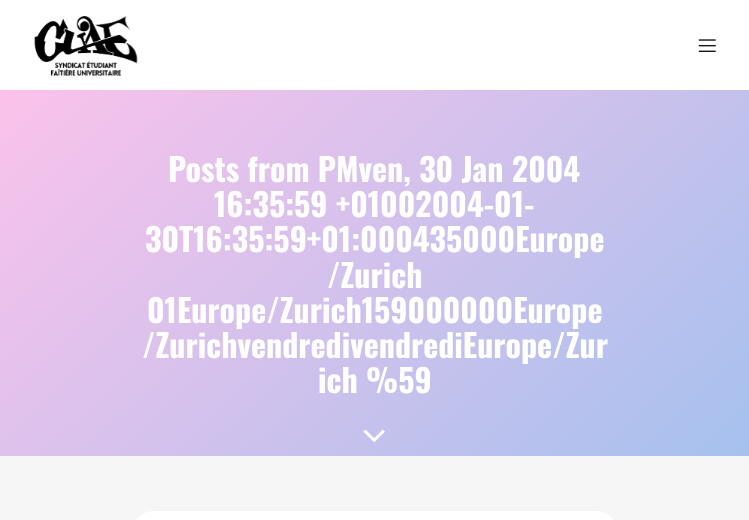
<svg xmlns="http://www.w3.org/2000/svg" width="749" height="520">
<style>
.a{font:bold 32px Oswald;fill:#fff}
</style>
<defs>
<linearGradient id="g1" gradientUnits="userSpaceOnUse" x1="102" y1="-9" x2="647" y2="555"><stop offset="0" stop-color="#fbc2eb"/><stop offset="1" stop-color="#a6c1ee"/></linearGradient>
</defs>
<rect width="100%" height="100%" fill="#fff"/>
<image href="1.png" x="34" y="16" width="104" height="60"/>
<image href="2.png" x="698" y="39" width="18" height="13"/>
<path fill="url(#g1)" d="M0 90h749v366H0z"/>
<image href="3.png" x="363" y="429" width="22" height="13"/>
<path fill="#f6f6f6" d="M0 456h749v64H0z"/>
<rect fill="#fff" x="135" y="511" width="480" height="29" rx="20"/>
<text class="a" x="168" y="182">Posts from PMven, 30 Jan 2004</text>
<text class="a" x="214" y="217">16:35:59 +01002004-01-</text>
<text class="a" x="145" y="252">30T16:35:59+01:000435000Europe</text>
<text class="a" x="327" y="288">/Zurich</text>
<text class="a" x="147" y="323">01Europe/Zurich159000000Europe</text>
<text class="a" x="142" y="358">/ZurichvendredivendrediEurope/Zur</text>
<text class="a" x="318" y="393">ich %59</text>
</svg>
